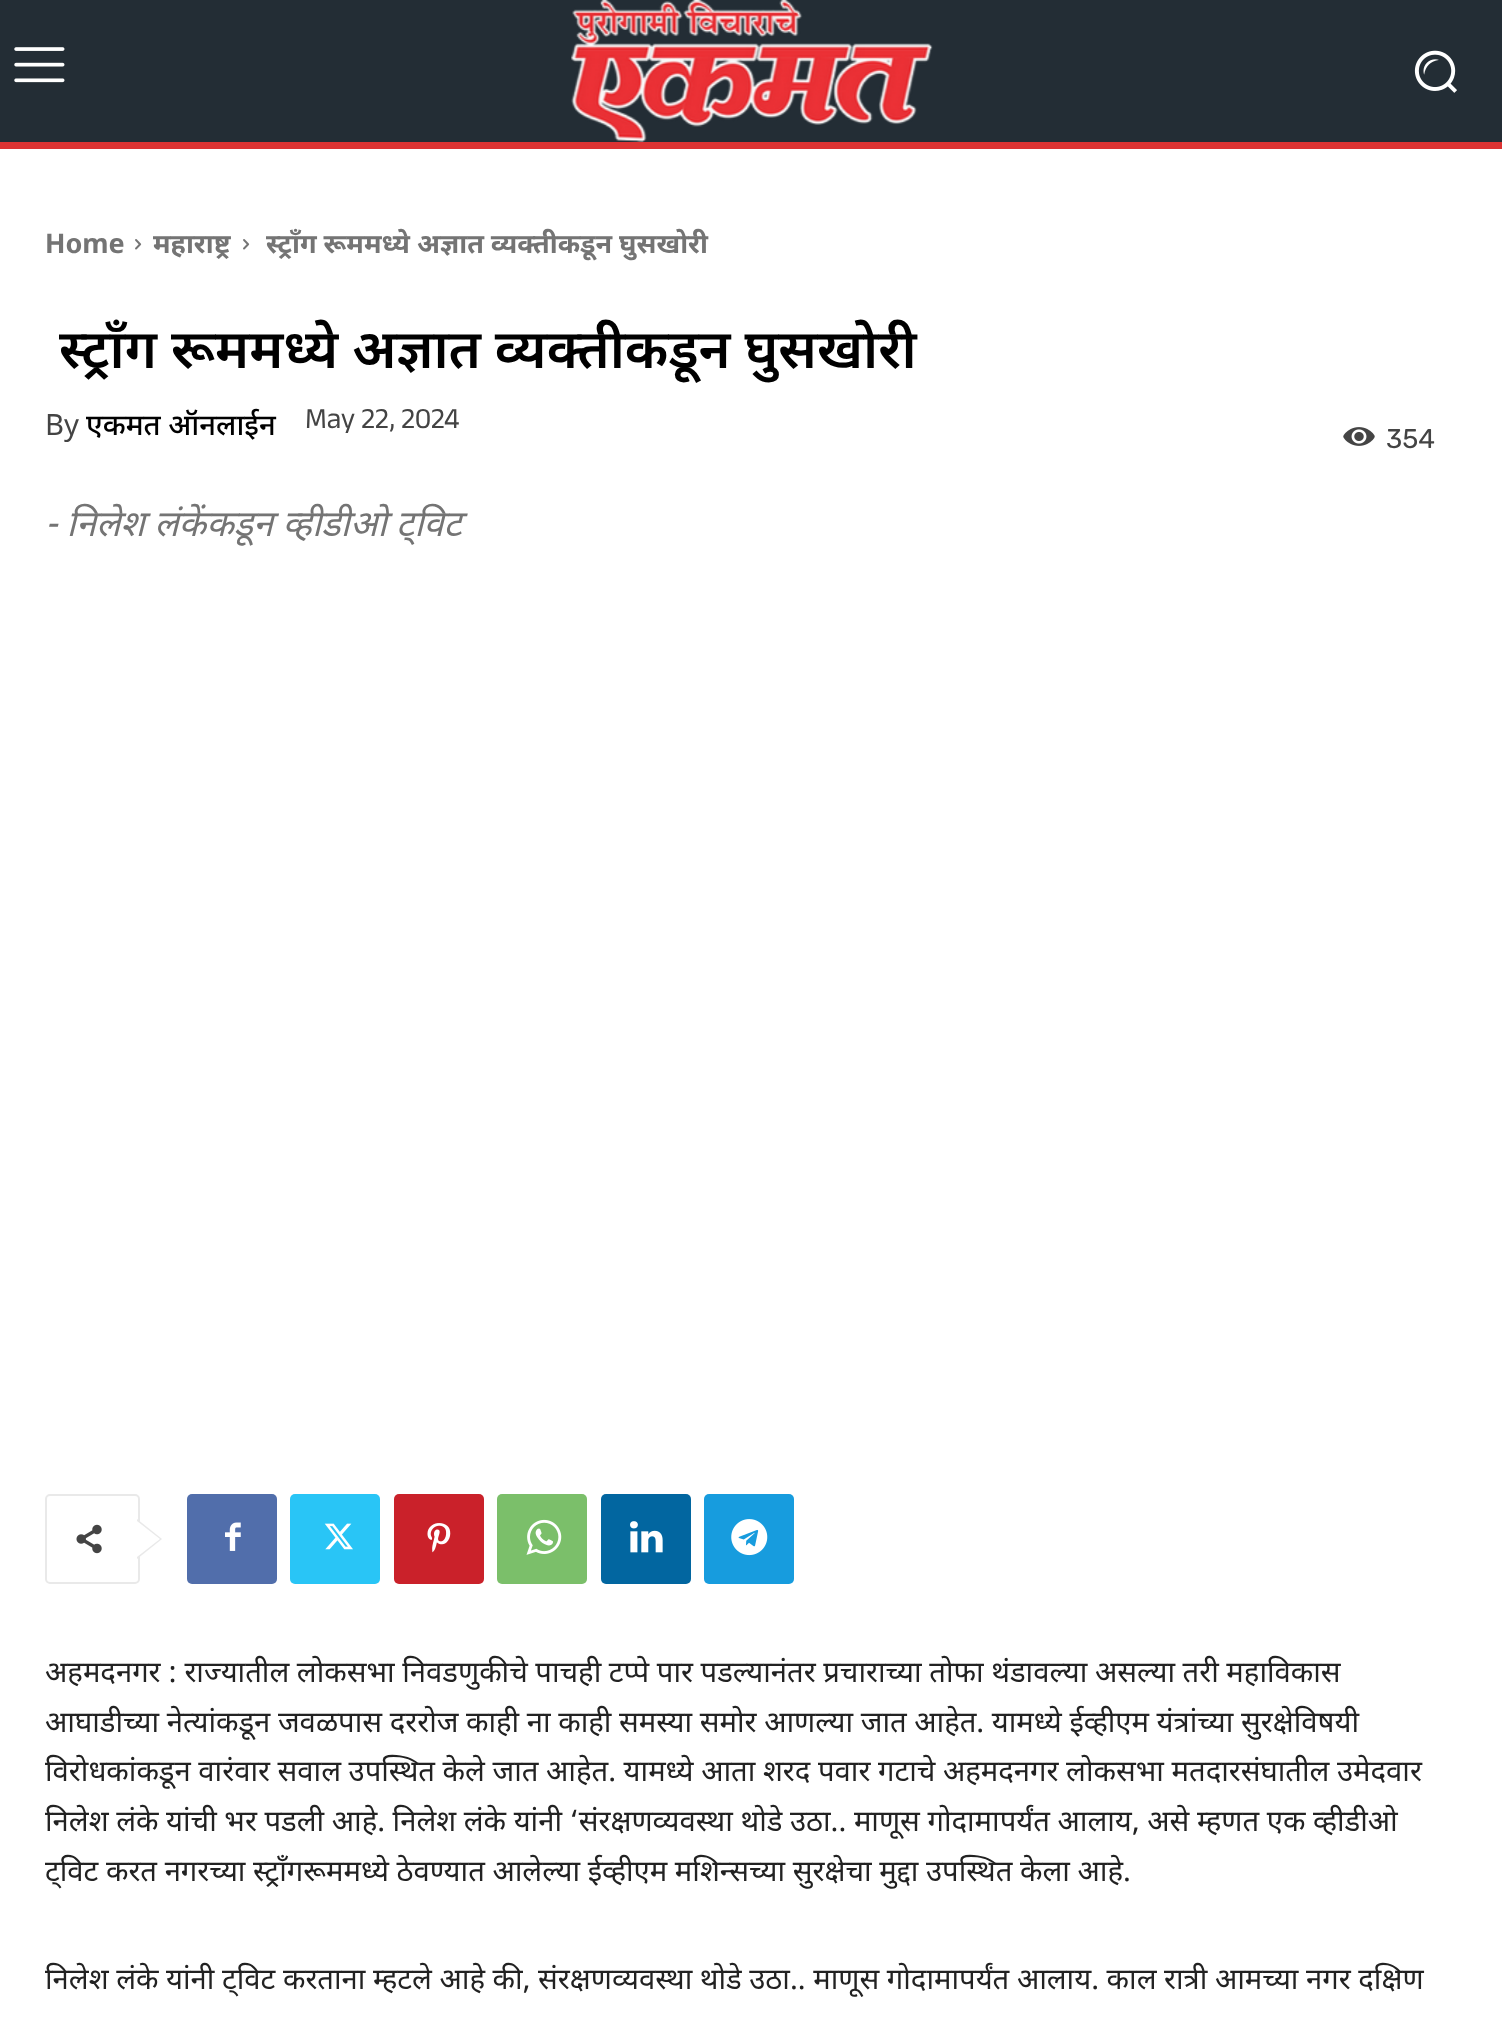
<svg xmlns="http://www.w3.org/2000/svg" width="1502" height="2028">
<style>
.a{font:bold 27px Noto Sans Devanagari;fill:#747474}
.b{font:600 54px Noto Sans Devanagari;fill:#000}
.c{font:29.25px Noto Sans Devanagari;fill:#444}
.d{font:500 29.25px Noto Sans Devanagari;fill:#000}
.e{font:500 29.25px Anek Devanagari;fill:#444}
.f{font:27px Rubik;fill:#444}
.g{font:italic 36px Noto Sans Devanagari;fill:#747474}
.h{font:29.25px Noto Sans Devanagari;fill:#222}
</style>
<rect width="100%" height="100%" fill="#fff"/>
<path fill="#232d35" d="M0 0h1502v142H0z"/>
<image href="1.png" x="14" y="47" width="51" height="36"/>
<image href="2.png" x="571" y="0" width="362" height="142"/>
<image href="3.png" x="1414" y="50" width="43" height="43"/>
<path fill="#d33" d="M0 142h1502v7H0z"/>
<image href="4.png" x="135" y="239" width="7" height="11"/>
<image href="4.png" x="243" y="239" width="7" height="11"/>
<image href="5.png" x="1343" y="427" width="32" height="19"/>
<rect fill="none" stroke="#e9e9e9" stroke-width="2" x="46" y="1495" width="93" height="88" rx="4"/>
<path fill="#e9e9e9" d="M137 1559v-40l25 20z"/>
<image href="6.png" x="76" y="1524" width="26" height="30"/>
<path fill="#fff" d="M137 1557v-36l23 18z"/>
<rect fill="#516eab" x="187" y="1494" width="90" height="90" rx="5"/>
<image href="7.png" x="225" y="1522" width="16" height="29"/>
<rect fill="#29c5f6" x="290" y="1494" width="90" height="90" rx="5"/>
<image href="8.png" x="324" y="1523" width="29" height="27"/>
<rect fill="#ca212a" x="394" y="1494" width="90" height="90" rx="5"/>
<image href="9.png" x="427" y="1523" width="24" height="30"/>
<rect fill="#7bbf6a" x="497" y="1494" width="90" height="90" rx="5"/>
<image href="10.png" x="526" y="1519" width="36" height="36"/>
<rect fill="#0266a0" x="601" y="1494" width="90" height="90" rx="5"/>
<image href="11.png" x="630" y="1521" width="33" height="32"/>
<rect fill="#179cde" x="704" y="1494" width="90" height="90" rx="5"/>
<image href="12.png" x="731" y="1519" width="37" height="37"/>
<text class="a" x="45" y="253">Home</text>
<text class="a" x="153" y="253">महाराष्ट्र</text>
<text class="a" x="266" y="253">स्ट्राँग रूममध्ये अज्ञात व्यक्तीकडून घुसखोरी</text>
<text class="b" x="59" y="368">स्ट्राँग रूममध्ये अज्ञात व्यक्तीकडून घुसखोरी</text>
<text class="c" x="45" y="435">By</text>
<text class="d" x="86" y="435">एकमत ऑनलाईन</text>
<text class="e" x="305" y="428">May 22, 2024</text>
<text class="f" x="1386" y="448">354</text>
<text class="g" x="45" y="536">- निलेश लंकेंकडून व्हीडीओ ट्विट</text>
<text class="h" x="45" y="1682">अहमदनगर : राज्यातील लोकसभा निवडणुकीचे पाचही टप्पे पार पडल्यानंतर प्रचाराच्या तोफा थंडावल्या असल्या तरी महाविकास</text>
<text class="h" x="45" y="1732">आघाडीच्या नेत्यांकडून जवळपास दररोज काही ना काही समस्या समोर आणल्या जात आहेत. यामध्ये ईव्हीएम यंत्रांच्या सुरक्षेविषयी</text>
<text class="h" x="45" y="1781">विरोधकांकडून वारंवार सवाल उपस्थित केले जात आहेत. यामध्ये आता शरद पवार गटाचे अहमदनगर लोकसभा मतदारसंघातील उमेदवार</text>
<text class="h" x="45" y="1831">निलेश लंके यांची भर पडली आहे. निलेश लंके यांनी ‘संरक्षणव्यवस्था थोडे उठा.. माणूस गोदामापर्यंत आलाय, असे म्हणत एक व्हीडीओ</text>
<text class="h" x="45" y="1881">ट्विट करत नगरच्या स्ट्राँगरूममध्ये ठेवण्यात आलेल्या ईव्हीएम मशिन्सच्या सुरक्षेचा मुद्दा उपस्थित केला आहे.</text>
<text class="h" x="45" y="1989">निलेश लंके यांनी ट्विट करताना म्हटले आहे की, संरक्षणव्यवस्था थोडे उठा.. माणूस गोदामापर्यंत आलाय. काल रात्री आमच्या नगर दक्षिण</text>
</svg>
